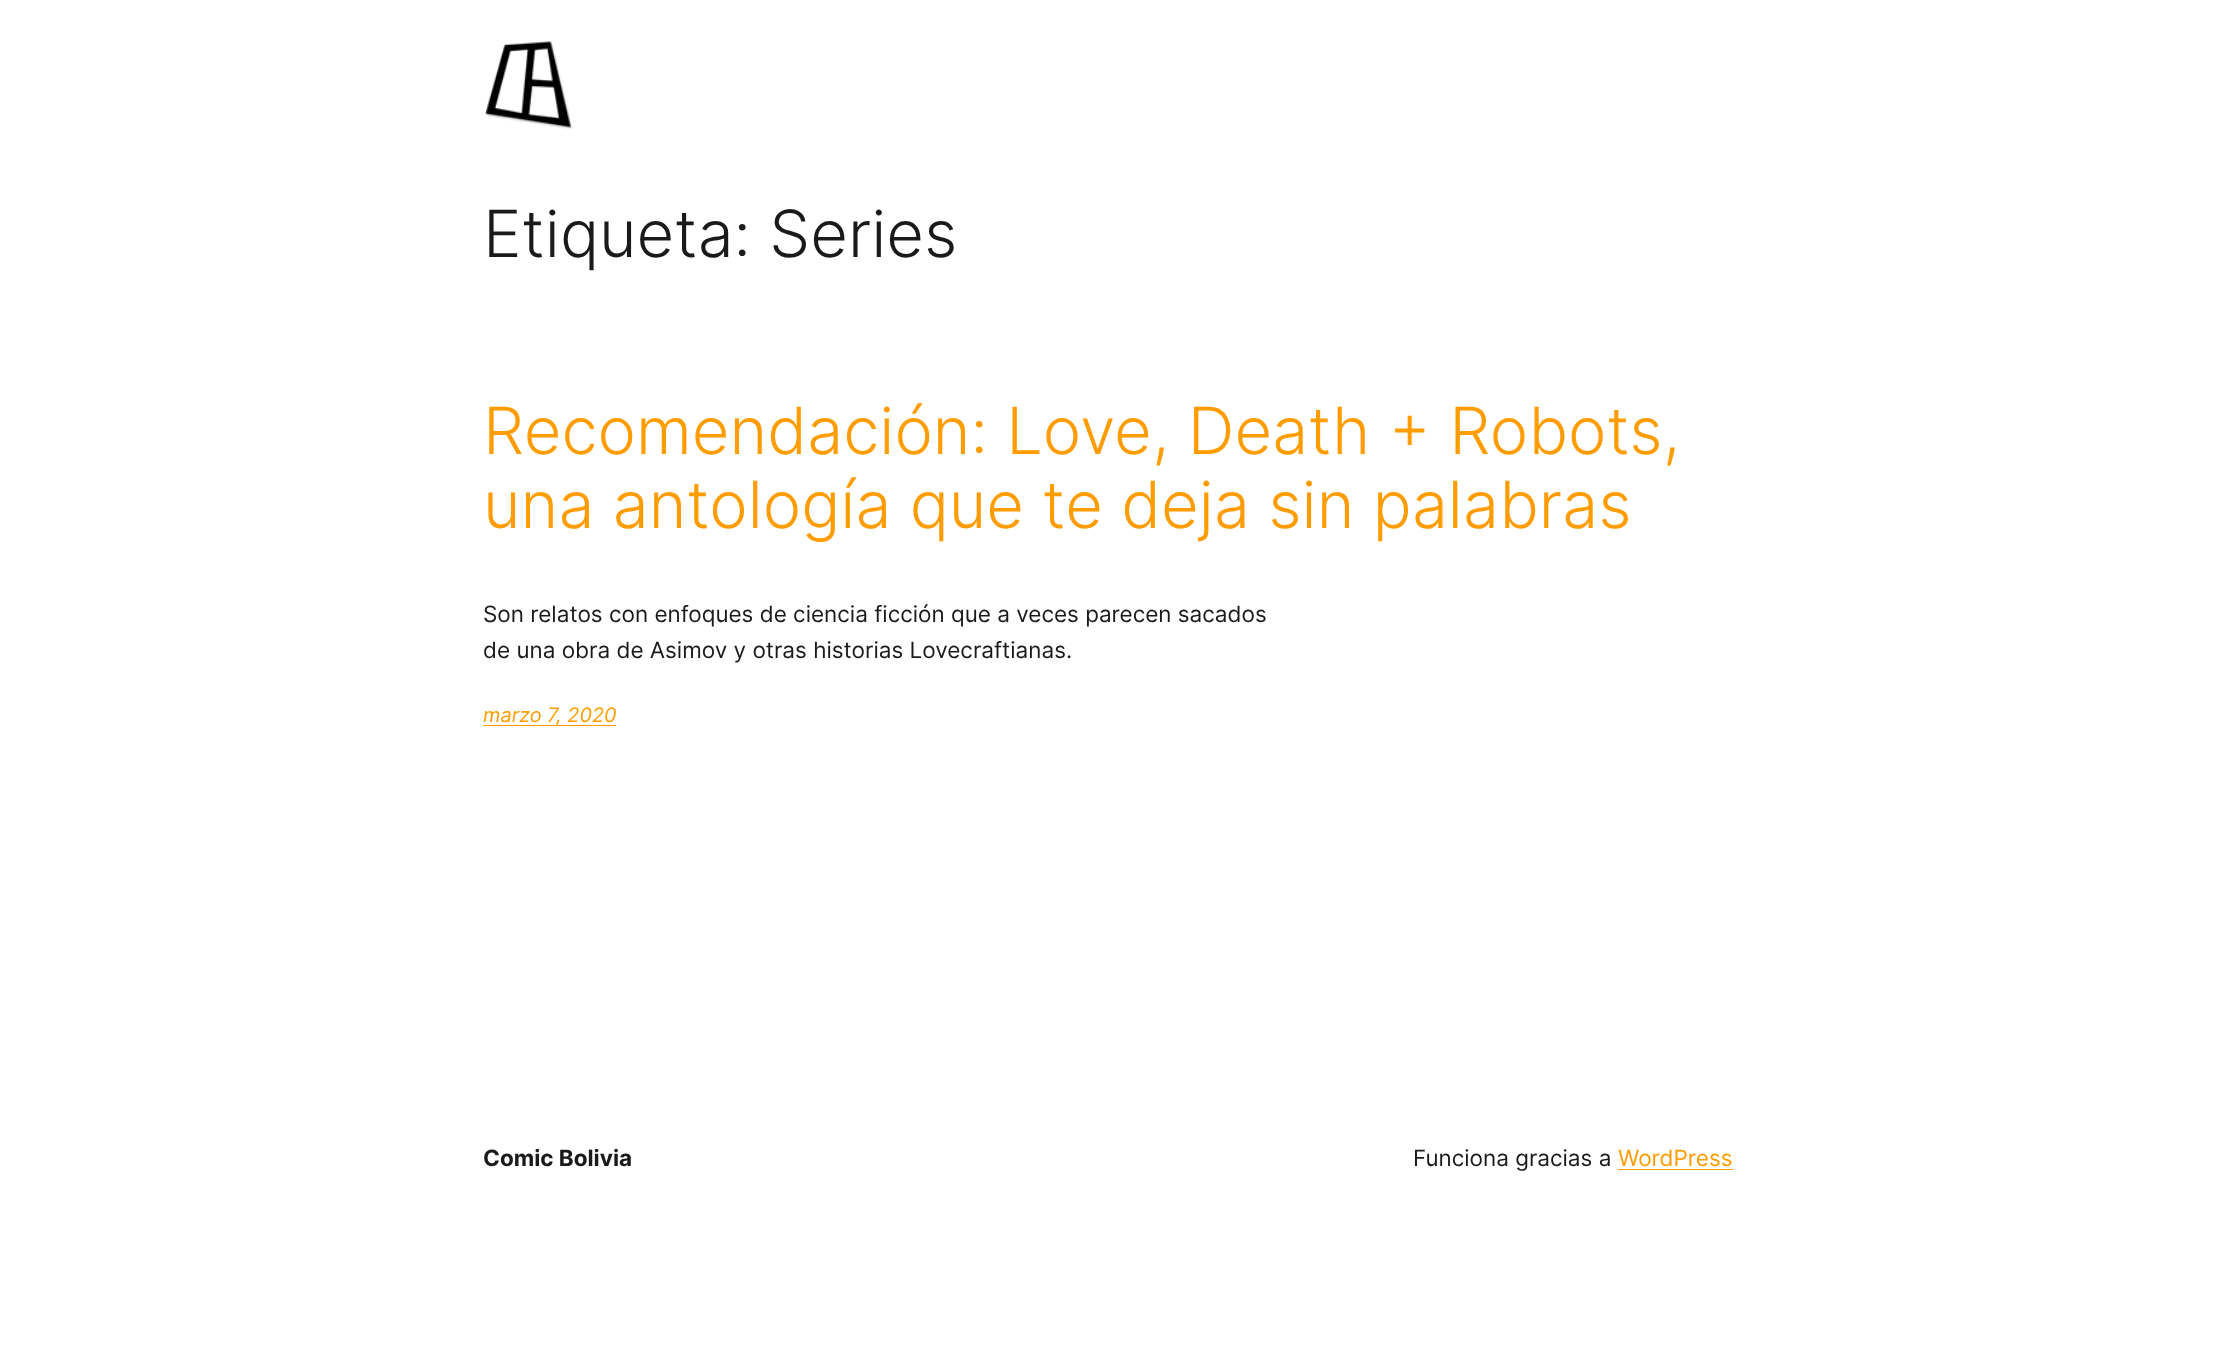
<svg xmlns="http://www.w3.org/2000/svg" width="2215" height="1366">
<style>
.a{font:300 65px Inter;fill:#1a1a1a}
.b{font:300 65px Inter;fill:#ff9c00}
.c{font:22.5px Inter;fill:#1a1a1a}
.d{font:italic 20px Inter;fill:#ff9c00}
.e{font:bold 22.5px Inter;fill:#1a1a1a}
.f{font:22.5px Inter;fill:#ff9c00}
</style>
<rect width="100%" height="100%" fill="#fff"/>
<image href="1.png" x="485" y="41" width="88" height="88"/>
<path fill="#ff9c00" d="M483 725h133v1H483z"/>
<path fill="#ff9c00" d="M1618 1169h115v1H1618z"/>
<text class="a" x="483" y="257">Etiqueta: Series</text>
<text class="b" x="483" y="454">Recomendación: Love, Death + Robots,</text>
<text class="b" x="483" y="528">una antología que te deja sin palabras</text>
<text class="c" x="483" y="622">Son relatos con enfoques de ciencia ficción que a veces parecen sacados</text>
<text class="c" x="483" y="658">de una obra de Asimov y otras historias Lovecraftianas.</text>
<text class="d" x="483" y="722">marzo 7, 2020</text>
<text class="e" x="483" y="1166">Comic Bolivia</text>
<text class="c" x="1413" y="1166">Funciona gracias a</text>
<text class="f" x="1618" y="1166">WordPress</text>
</svg>
